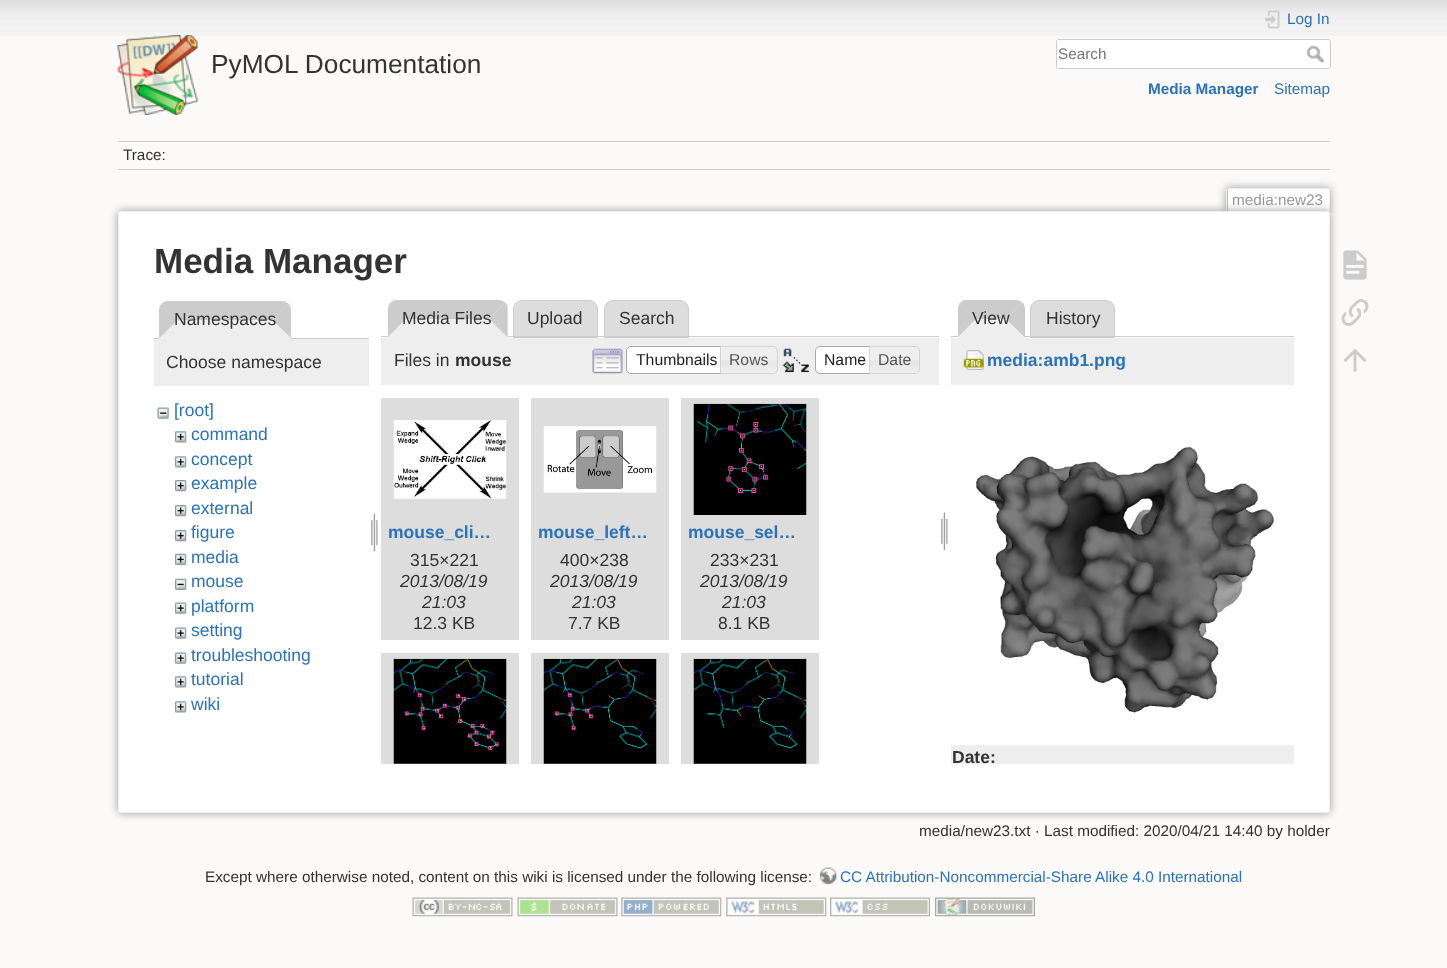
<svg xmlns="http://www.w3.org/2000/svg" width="1447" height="968">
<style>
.a{font:26.25px Liberation Sans;fill:#333}
.b{font:15.3px Liberation Sans;fill:#2b73b7}
.c{font:15.3px Liberation Sans;fill:#757575}
.d{font:bold 15.3px Liberation Sans;fill:#2b73b7}
.e{font:15.3px Liberation Sans;fill:#333}
.f{font:15.3px Liberation Sans;fill:#999}
.g{font:bold 35px Liberation Sans;fill:#333}
.h{font:17.5px Liberation Sans;fill:#333}
.i{font:17.5px Liberation Sans;fill:#2b73b7}
.j{font:bold 17.5px Liberation Sans;fill:#333}
.k{font:15.75px Liberation Sans;fill:#212121}
.l{font:15.75px Liberation Sans;fill:#555}
.m{font:bold 17.5px Liberation Sans;fill:#2b73b7}
.n{font:italic 17.5px Liberation Sans;fill:#333}
</style>
<defs>
<clipPath id="clip1"><path d="M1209 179h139v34H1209z"/></clipPath>
</defs>
<rect width="100%" height="100%" fill="#fbfaf9"/>
<image href="1.png" x="0" y="0" width="1447" height="36"/>
<image href="2.png" x="117" y="35" width="81" height="80"/>
<image href="3.png" x="1265" y="10" width="15" height="19"/>
<rect fill="#fff" stroke="#ccc" x="1056.5" y="39.5" width="274" height="29" rx="2"/>
<image href="4.png" x="1306" y="45" width="18" height="18"/>
<path fill="#ccc" d="M118 141h1212v1H118z"/>
<path fill="#fff" d="M118 170h1212v1H118z"/>
<path fill="#fff" d="M118 143h1212v1H118z"/>
<path fill="#ccc" d="M118 169h1212v1H118z"/>
<g clip-path="url(#clip1)">
<rect fill="#999" filter="blur(4px)" x="1226" y="188" width="104" height="25" rx="2.5"/>
</g>
<path fill="#fff" d="M1229 189h99c.5 0 1 .5 1 1v23h-101v-23c0-.5 .5-1 1-1z"/>
<path fill="#eee" d="M1228 188h101v1H1228z"/>
<path fill="#eee" d="M1329 189h1v24H1329z"/>
<path fill="#eee" d="M1226 189h1v24H1226z"/>
<rect fill="#999" filter="blur(4.5px)" x="118" y="211" width="1212" height="602" rx="2.5"/>
<rect fill="#fff" stroke="#eee" x="118.5" y="211.5" width="1211" height="601" rx="2"/>
<path fill="#ccc" d="M154 338h215v1H154z"/>
<path fill="#eee" d="M168 301h114c5 0 9 4 9 9v29h-132v-29c0-5 4-9 9-9z"/>
<path fill="#ccc" d="M284 301h-118c-2 1-3 2-5 3l17 16h94l17-16c-2-1-3-2-5-3z"/>
<path fill="#ccc" d="M288.5 304l-16 16l18.5 18.5v-28.5c0-2.5-1-4.5-2.5-6z"/>
<path fill="#eee" d="M291 338l-19-18h-94l-19 19z"/>
<path fill="#ccc" d="M159 338.5l18.5-18.5l-16-16c-1.5 1.5-2.5 3.5-2.5 6z"/>
<path fill="#eee" d="M154 339h215v47H154z"/>
<image href="5.png" x="157" y="407" width="12" height="12"/>
<image href="6.png" x="175" y="431" width="12" height="12"/>
<image href="6.png" x="175" y="456" width="12" height="12"/>
<image href="7.png" x="175" y="480" width="12" height="12"/>
<image href="7.png" x="175" y="505" width="12" height="12"/>
<image href="7.png" x="175" y="530" width="12" height="12"/>
<image href="8.png" x="175" y="553" width="12" height="12"/>
<image href="9.png" x="175" y="578" width="12" height="12"/>
<image href="10.png" x="175" y="602" width="12" height="12"/>
<image href="10.png" x="175" y="627" width="12" height="12"/>
<image href="10.png" x="175" y="652" width="12" height="12"/>
<image href="6.png" x="175" y="676" width="12" height="12"/>
<image href="6.png" x="175" y="701" width="12" height="12"/>
<image href="11.png" x="371" y="512" width="7" height="40"/>
<path fill="#ddd" stroke="#ccc" d="M522 300.5h67c4.5 0 8.5 4 8.5 8.5v28.5h-84v-28.5c0-4.5 4-8.5 8.5-8.5z"/>
<path fill="#ddd" stroke="#ccc" d="M613 300.5h67c4.5 0 8.5 4 8.5 8.5v28.5h-84v-28.5c0-4.5 4-8.5 8.5-8.5z"/>
<path fill="#ccc" d="M381 336h558v1H381z"/>
<path fill="#eee" d="M397 300h102c5 0 9 4 9 9v29h-120v-29c0-5 4-9 9-9z"/>
<path fill="#ccc" d="M396 300h103c2 0 5 1 6 2l-16 17h-83l-16-16c2-2 4-3 6-3z"/>
<path fill="#ccc" d="M505 302.5l-16 16.5l18.5 18.5v-31.5c-.5-1.5-1.5-2.5-2.5-3.5z"/>
<path fill="#eee" d="M508 338l-19-19h-83l-18 19z"/>
<path fill="#ccc" d="M390 302.5c-1 1.5-2 4-2 6.5v28l18-18z"/>
<path fill="#eee" d="M381 338h558v47H381z"/>
<image href="12.png" x="592" y="348" width="31" height="26"/>
<path fill="#fff" stroke="#aaa" d="M631 346.5h94.5v27h-94.5c-2.5 0-4.5-2-4.5-4.5v-18c0-2.5 2-4.5 4.5-4.5z"/>
<image href="13.png" x="721" y="346" width="56" height="28"/>
<path fill="none" stroke="#d3d3d3" d="M720.5 346.5h52.5c2.5 0 4.5 2 4.5 4.5v18c0 2.5-2 4.5-4.5 4.5h-52.5z"/>
<image href="14.png" x="782" y="348" width="27" height="25"/>
<path fill="#fff" stroke="#aaa" d="M820 346.5h54.5v27h-54.5c-2.5 0-4.5-2-4.5-4.5v-18c0-2.5 2-4.5 4.5-4.5z"/>
<image href="15.png" x="870" y="346" width="50" height="28"/>
<path fill="none" stroke="#d3d3d3" d="M869.5 346.5h45.5c2.5 0 4.5 2 4.5 4.5v18c0 2.5-2 4.5-4.5 4.5h-45.5z"/>
<path fill="#ddd" d="M381 398h138v242H381z"/>
<image href="16.png" x="393" y="420" width="114" height="79"/>
<path fill="#ddd" d="M531 398h138v242H531z"/>
<image href="17.png" x="543" y="426" width="114" height="67"/>
<path fill="#ddd" d="M681 398h138v242H681z"/>
<image href="18.png" x="693" y="403" width="114" height="112"/>
<path fill="#ddd" d="M381 653h138v111H381z"/>
<image href="19.png" x="393" y="658" width="114" height="106"/>
<path fill="#ddd" d="M531 653h138v111H531z"/>
<image href="20.png" x="543" y="658" width="114" height="106"/>
<path fill="#ddd" d="M681 653h138v111H681z"/>
<image href="21.png" x="693" y="658" width="114" height="106"/>
<image href="22.png" x="941" y="511" width="7" height="40"/>
<path fill="#ddd" stroke="#ccc" d="M1039 300.5h67c4.5 0 8.5 4 8.5 8.5v28.5h-84v-28.5c0-4.5 4-8.5 8.5-8.5z"/>
<path fill="#ccc" d="M951 336h343v1H951z"/>
<path fill="#eee" d="M967 300h49c5 0 9 4 9 9v29h-67v-29c0-5 4-9 9-9z"/>
<path fill="#ccc" d="M966 300h50c2 0 5 1 6 3l-16 16h-30l-16-16c2-2 4-3 6-3z"/>
<path fill="#ccc" d="M1022.5 302.5l-16.5 16.5l19 18.5v-28.5c0-2.5-1-5-2.5-6.5z"/>
<path fill="#eee" d="M1025 338l-19-19h-30l-18 18v1z"/>
<path fill="#ccc" d="M960 302.5c-1 1.5-2 4-2 6.5v28l18-18z"/>
<path fill="#eee" d="M951 338h343v47H951z"/>
<image href="23.png" x="963" y="350" width="21" height="20"/>
<image href="24.png" x="976" y="447" width="298" height="266"/>
<path fill="#eee" d="M951 745h343v19H951z"/>
<image href="25.png" x="1343" y="250" width="24" height="30"/>
<image href="26.png" x="1341" y="299" width="28" height="27"/>
<image href="27.png" x="1343" y="348" width="24" height="24"/>
<image href="28.png" x="819" y="867" width="18" height="18"/>
<image href="29.png" x="412" y="897" width="101" height="20"/>
<image href="30.png" x="517" y="897" width="101" height="20"/>
<image href="31.png" x="621" y="897" width="101" height="20"/>
<image href="32.png" x="726" y="897" width="101" height="20"/>
<image href="33.png" x="830" y="897" width="100" height="20"/>
<image href="34.png" x="935" y="897" width="100" height="20"/>
<text class="a" x="211" y="73">PyMOL Documentation</text>
<text class="b" x="1287" y="24">Log In</text>
<text class="c" x="1058" y="59">Search</text>
<text class="d" x="1148" y="94">Media Manager</text>
<text class="b" x="1274" y="94">Sitemap</text>
<text class="e" x="123" y="160">Trace:</text>
<text class="f" x="1232" y="205">media:new23</text>
<text class="g" x="154" y="273">Media Manager</text>
<text class="h" x="174" y="325">Namespaces</text>
<text class="h" x="166" y="368">Choose namespace</text>
<text class="i" x="174" y="416">[root]</text>
<text class="i" x="191" y="440">command</text>
<text class="i" x="191" y="465">concept</text>
<text class="i" x="191" y="489">example</text>
<text class="i" x="191" y="514">external</text>
<text class="i" x="191" y="538">figure</text>
<text class="i" x="191" y="563">media</text>
<text class="i" x="191" y="587">mouse</text>
<text class="i" x="191" y="612">platform</text>
<text class="i" x="191" y="636">setting</text>
<text class="i" x="191" y="661">troubleshooting</text>
<text class="i" x="191" y="685">tutorial</text>
<text class="i" x="191" y="710">wiki</text>
<text class="h" x="402" y="324">Media Files</text>
<text class="h" x="527" y="324">Upload</text>
<text class="h" x="619" y="324">Search</text>
<text class="h" x="394" y="366">Files in</text>
<text class="j" x="455" y="366">mouse</text>
<text class="k" x="636" y="365">Thumbnails</text>
<text class="l" x="729" y="365">Rows</text>
<text class="k" x="824" y="365">Name</text>
<text class="l" x="878" y="365">Date</text>
<text class="m" x="388" y="538">mouse_cli…</text>
<text class="h" x="410" y="566">315×221</text>
<text class="n" x="400" y="587">2013/08/19</text>
<text class="n" x="422" y="608">21:03</text>
<text class="h" x="413" y="629">12.3 KB</text>
<text class="m" x="538" y="538">mouse_left…</text>
<text class="h" x="560" y="566">400×238</text>
<text class="n" x="550" y="587">2013/08/19</text>
<text class="n" x="572" y="608">21:03</text>
<text class="h" x="568" y="629">7.7 KB</text>
<text class="m" x="688" y="538">mouse_sel…</text>
<text class="h" x="710" y="566">233×231</text>
<text class="n" x="700" y="587">2013/08/19</text>
<text class="n" x="722" y="608">21:03</text>
<text class="h" x="718" y="629">8.1 KB</text>
<text class="h" x="972" y="324">View</text>
<text class="h" x="1046" y="324">History</text>
<text class="m" x="987" y="366">media:amb1.png</text>
<text class="j" x="952" y="763">Date:</text>
<text class="e" x="919" y="836">media/new23.txt · Last modified: 2020/04/21 14:40 by holder</text>
<text class="e" x="205" y="882">Except where otherwise noted, content on this wiki is licensed under the following license:</text>
<text class="b" x="840" y="882">CC Attribution-Noncommercial-Share Alike 4.0 International</text>
</svg>
